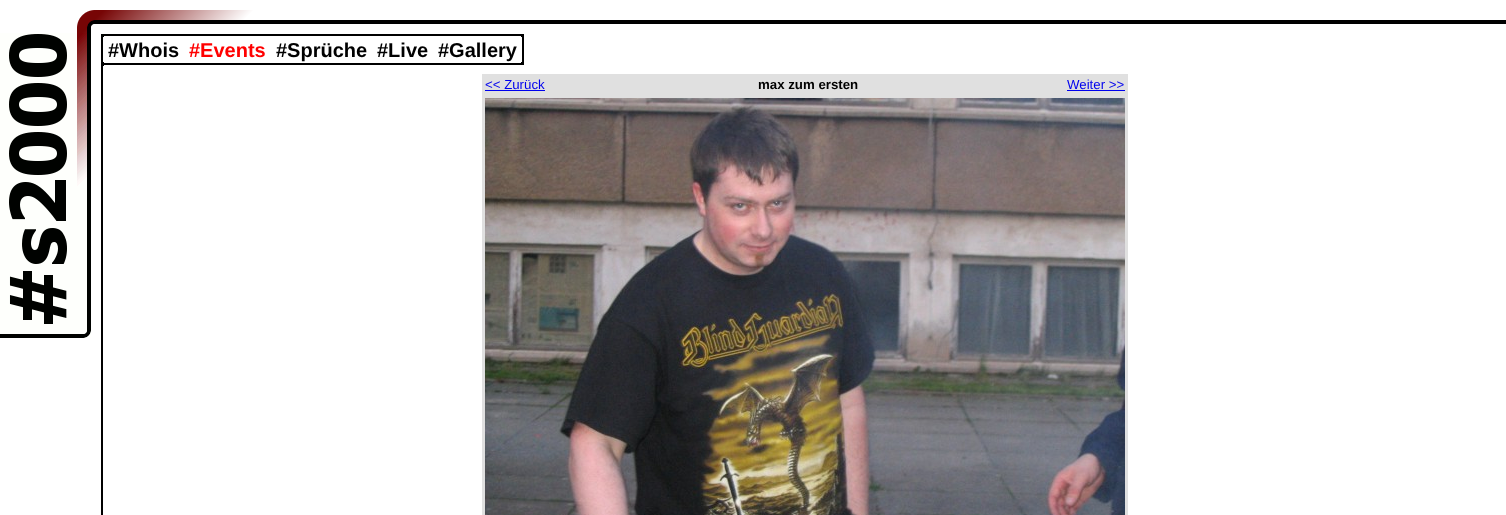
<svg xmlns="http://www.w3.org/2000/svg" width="1506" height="515">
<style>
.a{font:bold 20px Liberation Sans;fill:#000}
.b{font:bold 20px Liberation Sans;fill:#f00}
.c{font:13.25px Liberation Sans;fill:#00e}
.d{font:bold 13.25px Liberation Sans;fill:#000}
</style>
<rect width="100%" height="100%" fill="#fff"/>
<image href="1.png" x="77" y="10" width="23" height="23"/>
<image href="2.png" x="100" y="10" width="153" height="14"/>
<path fill="#000" d="M253 20h1253v4H253z"/>
<image href="3.png" x="0" y="33" width="91" height="305"/>
<path fill="#000100" d="M101 34h3v3H101z"/>
<path fill="#000" d="M104 34h417v2H104z"/>
<path fill="#000100" d="M521 34h3v3H521z"/>
<path fill="#000" d="M101 37h2v25H101z"/>
<path fill="#000" d="M522 37h2v25H522z"/>
<path fill="#000" d="M101 62h3v4H101z"/>
<path fill="#000" d="M104 63h417v2H104z"/>
<path fill="#000100" d="M521 62h3v3H521z"/>
<path fill="#000" d="M101 66h2v449H101z"/>
<path fill="#e0e0e0" d="M482 74h646v441H482z"/>
<path fill="#00e" d="M485 90h60v1H485z"/>
<path fill="#00e" d="M1067 90h58v1H1067z"/>
<image href="4.png" x="485" y="98" width="640" height="417"/>
<text class="a" x="108" y="57">#Whois</text>
<text class="b" x="189" y="57">#Events</text>
<text class="a" x="276" y="57">#Sprüche</text>
<text class="a" x="377" y="57">#Live</text>
<text class="a" x="438" y="57">#Gallery</text>
<text class="c" x="485" y="89">&lt;&lt; Zurück</text>
<text class="d" x="758" y="89">max zum ersten</text>
<text class="c" x="1067" y="89">Weiter &gt;&gt;</text>
</svg>
